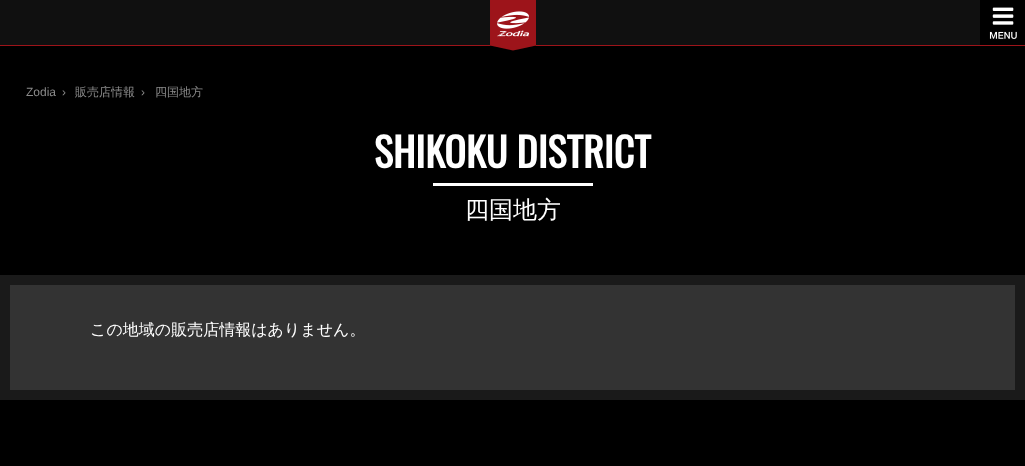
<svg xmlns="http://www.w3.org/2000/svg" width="1025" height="466">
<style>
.a{font:12px Liberation Sans;fill:#8b8b8b}
.b{font:500 12px WenQuanYi Zen Hei;fill:#8b8b8b}
.c{font:bold 40px Oswald;fill:#fff}
.d{font:500 24px WenQuanYi Zen Hei;fill:#fff}
.e{font:500 16px WenQuanYi Zen Hei;fill:#fff}
</style>
<rect width="100%" height="100%" fill="#000"/>
<path fill="#101010" d="M0 0h980v45H0z"/>
<path fill="#9d141a" d="M0 45h1025v1H0z"/>
<image href="1.png" x="490" y="0" width="46" height="51"/>
<image href="2.png" x="980" y="0" width="45" height="45"/>
<path fill="#fff" d="M433 183h160v3H433z"/>
<path fill="#333" stroke="#1a1a1a" stroke-width="10" d="M5 280h1015v115H5z"/>
<text class="a" x="26" y="96">Zodia</text>
<text class="a" x="62" y="96">›</text>
<text class="b" x="75" y="96">販売店情報</text>
<text class="a" x="141" y="96">›</text>
<text class="b" x="155" y="96">四国地方</text>
<text class="c" x="374" y="168">SHIKOKU DISTRICT</text>
<text class="d" x="465" y="218">四国地方</text>
<text class="e" x="90" y="335">この地域の販売店情報はありません。</text>
</svg>
